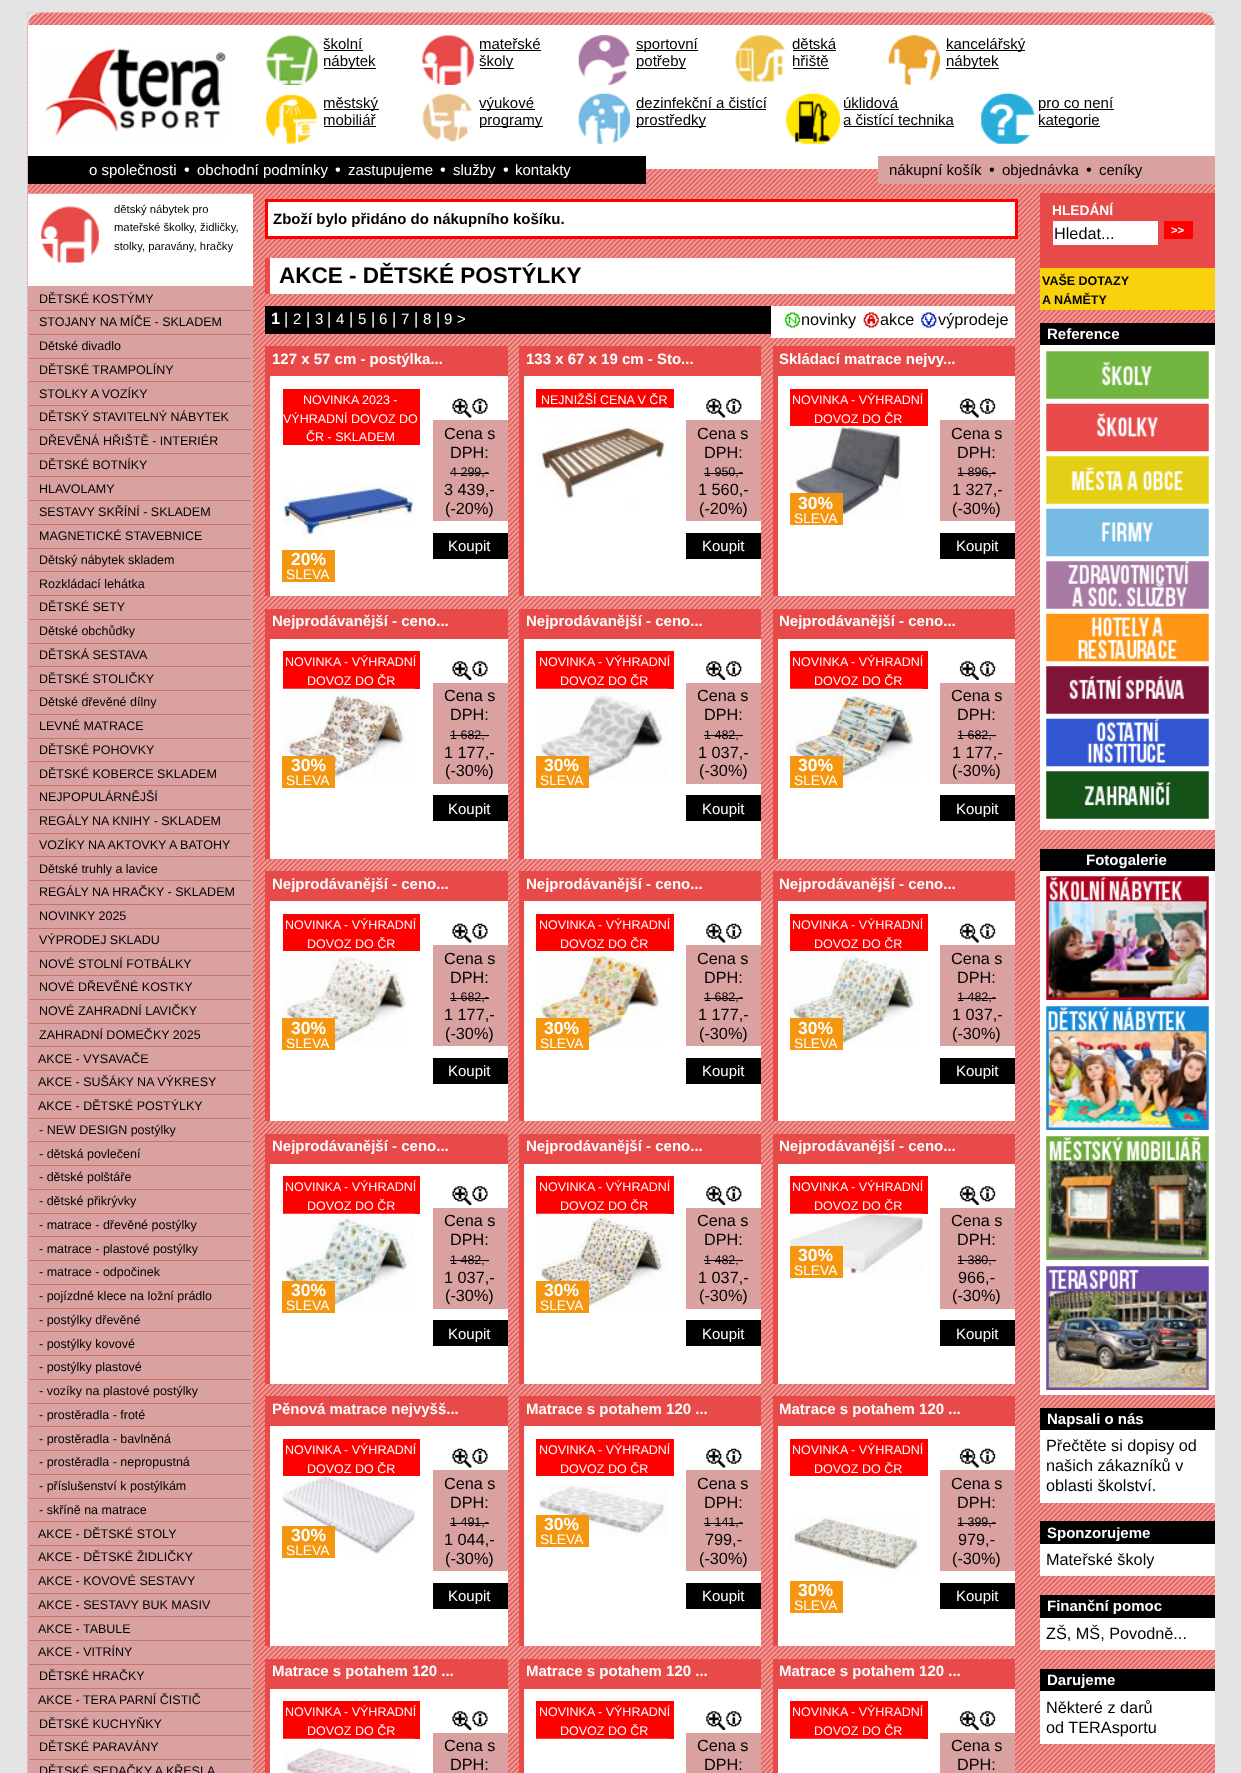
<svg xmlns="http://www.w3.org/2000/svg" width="1241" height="1773">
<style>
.a{font:15px Liberation Sans;fill:#000}
.b{font:15px Liberation Sans;fill:#fff}
.c{font:16.25px Liberation Sans;fill:#fff}
.d{font:16.25px Liberation Sans;fill:#000}
.e{font:11.25px Liberation Sans;fill:#000}
.f{font:12.5px Liberation Sans;fill:#000}
.g{font:bold 15px Liberation Sans;fill:#000}
.h{font:bold 22.5px Liberation Sans;fill:#000}
.i{font:bold 16.25px Liberation Sans;fill:#fff}
.j{font:bold 15px Liberation Sans;fill:#fff}
.k{font:12.5px Liberation Sans;fill:#fff}
.l{font:bold 17.5px Liberation Sans;fill:#fff}
.m{font:13.75px Liberation Sans;fill:#fff}
.n{font:bold 13.75px Liberation Sans;fill:#fff}
.o{font:bold 11.25px Liberation Sans;fill:#fff}
.p{font:bold 12.5px Liberation Sans;fill:#000}
</style>
<rect width="100%" height="100%" fill="#e4e4e4"/>
<image href="1.png" x="27" y="12" width="1188" height="1761"/>
<image href="2.png" x="27" y="12" width="12" height="12"/>
<image href="3.png" x="1203" y="12" width="12" height="12"/>
<path fill="#fff" d="M28 25h1187v144H28z"/>
<image href="4.png" x="44" y="47" width="183" height="93"/>
<image href="5.png" x="266" y="35" width="52" height="50"/>
<path fill="#000" d="M324 50h39v1H324z"/>
<path fill="#000" d="M324 68h52v1H324z"/>
<image href="6.png" x="422" y="35" width="52" height="50"/>
<path fill="#000" d="M480 50h61v1H480z"/>
<path fill="#000" d="M480 68h34v1H480z"/>
<image href="7.png" x="578" y="35" width="52" height="50"/>
<path fill="#000" d="M636 50h62v1H636z"/>
<path fill="#000" d="M636 68h50v1H636z"/>
<image href="8.png" x="735" y="35" width="51" height="48"/>
<path fill="#000" d="M793 50h43v1H793z"/>
<path fill="#000" d="M793 68h36v1H793z"/>
<image href="9.png" x="888" y="35" width="52" height="50"/>
<path fill="#000" d="M946 50h79v1H946z"/>
<path fill="#000" d="M946 68h53v1H946z"/>
<image href="10.png" x="266" y="94" width="52" height="50"/>
<path fill="#000" d="M324 109h55v1H324z"/>
<path fill="#000" d="M324 126h52v1H324z"/>
<image href="11.png" x="422" y="93" width="50" height="50"/>
<path fill="#000" d="M480 109h55v1H480z"/>
<path fill="#000" d="M480 126h63v1H480z"/>
<image href="12.png" x="578" y="93" width="52" height="51"/>
<path fill="#000" d="M636 109h130v1H636z"/>
<path fill="#000" d="M636 126h70v1H636z"/>
<image href="13.png" x="786" y="93" width="54" height="51"/>
<path fill="#000" d="M844 109h55v1H844z"/>
<path fill="#000" d="M844 126h110v1H844z"/>
<image href="14.png" x="981" y="93" width="54" height="51"/>
<path fill="#000" d="M1039 109h75v1H1039z"/>
<path fill="#000" d="M1039 126h61v1H1039z"/>
<path fill="#000" d="M28 156h618v28H28z"/>
<path fill="#daa1a1" d="M878 156h337v28H878z"/>
<path fill="#daa1a1" d="M28 193h225v1580H28z"/>
<path fill="#fff" d="M28 194h225v92H28z"/>
<image href="15.png" x="41" y="206" width="58" height="57"/>
<path fill="#c77171" d="M29 310h222v1H29z"/>
<path fill="#c77171" d="M29 334h222v1H29z"/>
<path fill="#c77171" d="M29 358h222v1H29z"/>
<path fill="#c77171" d="M29 381h222v1H29z"/>
<path fill="#c77171" d="M29 405h222v1H29z"/>
<path fill="#c77171" d="M29 429h222v1H29z"/>
<path fill="#c77171" d="M29 453h222v1H29z"/>
<path fill="#c77171" d="M29 476h222v1H29z"/>
<path fill="#c77171" d="M29 500h222v1H29z"/>
<path fill="#c77171" d="M29 524h222v1H29z"/>
<path fill="#c77171" d="M29 548h222v1H29z"/>
<path fill="#c77171" d="M29 571h222v1H29z"/>
<path fill="#c77171" d="M29 595h222v1H29z"/>
<path fill="#c77171" d="M29 619h222v1H29z"/>
<path fill="#c77171" d="M29 643h222v1H29z"/>
<path fill="#c77171" d="M29 666h222v1H29z"/>
<path fill="#c77171" d="M29 690h222v1H29z"/>
<path fill="#c77171" d="M29 714h222v1H29z"/>
<path fill="#c77171" d="M29 738h222v1H29z"/>
<path fill="#c77171" d="M29 761h222v1H29z"/>
<path fill="#c77171" d="M29 785h222v1H29z"/>
<path fill="#c77171" d="M29 809h222v1H29z"/>
<path fill="#c77171" d="M29 833h222v1H29z"/>
<path fill="#c77171" d="M29 856h222v1H29z"/>
<path fill="#c77171" d="M29 880h222v1H29z"/>
<path fill="#c77171" d="M29 904h222v1H29z"/>
<path fill="#c77171" d="M29 928h222v1H29z"/>
<path fill="#c77171" d="M29 951h222v1H29z"/>
<path fill="#c77171" d="M29 975h222v1H29z"/>
<path fill="#c77171" d="M29 999h222v1H29z"/>
<path fill="#c77171" d="M29 1023h222v1H29z"/>
<path fill="#c77171" d="M29 1046h222v1H29z"/>
<path fill="#c77171" d="M29 1070h222v1H29z"/>
<path fill="#c77171" d="M29 1094h222v1H29z"/>
<path fill="#c77171" d="M29 1118h222v1H29z"/>
<path fill="#c77171" d="M29 1141h222v1H29z"/>
<path fill="#c77171" d="M29 1165h222v1H29z"/>
<path fill="#c77171" d="M29 1189h222v1H29z"/>
<path fill="#c77171" d="M29 1213h222v1H29z"/>
<path fill="#c77171" d="M29 1236h222v1H29z"/>
<path fill="#c77171" d="M29 1260h222v1H29z"/>
<path fill="#c77171" d="M29 1284h222v1H29z"/>
<path fill="#c77171" d="M29 1308h222v1H29z"/>
<path fill="#c77171" d="M29 1331h222v1H29z"/>
<path fill="#c77171" d="M29 1355h222v1H29z"/>
<path fill="#c77171" d="M29 1379h222v1H29z"/>
<path fill="#c77171" d="M29 1403h222v1H29z"/>
<path fill="#c77171" d="M29 1426h222v1H29z"/>
<path fill="#c77171" d="M29 1450h222v1H29z"/>
<path fill="#c77171" d="M29 1474h222v1H29z"/>
<path fill="#c77171" d="M29 1498h222v1H29z"/>
<path fill="#c77171" d="M29 1521h222v1H29z"/>
<path fill="#c77171" d="M29 1545h222v1H29z"/>
<path fill="#c77171" d="M29 1569h222v1H29z"/>
<path fill="#c77171" d="M29 1593h222v1H29z"/>
<path fill="#c77171" d="M29 1616h222v1H29z"/>
<path fill="#c77171" d="M29 1640h222v1H29z"/>
<path fill="#c77171" d="M29 1664h222v1H29z"/>
<path fill="#c77171" d="M29 1688h222v1H29z"/>
<path fill="#c77171" d="M29 1711h222v1H29z"/>
<path fill="#c77171" d="M29 1735h222v1H29z"/>
<path fill="#c77171" d="M29 1759h222v1H29z"/>
<path fill="#fff" stroke="#f00" stroke-width="3" d="M266.5 200.5h750v37H266.5z"/>
<path fill="#fff" d="M270 258h745v36H270z"/>
<path fill="#e74a49" d="M265 258h5v36H265z"/>
<path fill="#000" d="M265 306h506v28H265z"/>
<path fill="#fff" d="M771 306h244v32H771z"/>
<image href="16.png" x="784" y="312" width="17" height="16"/>
<image href="17.png" x="863" y="312" width="16" height="16"/>
<image href="18.png" x="921" y="312" width="16" height="16"/>
<path fill="#fff" d="M270 376h238v220H270z"/>
<path fill="#e74a49" d="M265 346h5v250H265z"/>
<path fill="#e74a49" d="M270 346h238v30H270z"/>
<path fill="#f00" d="M283 389h137v56H283z"/>
<image href="19.png" x="282" y="484" width="133" height="61"/>
<path fill="#f49610" d="M282 550h53v32H282z"/>
<image href="20.png" x="452" y="398" width="36" height="20"/>
<path fill="#daa1a1" d="M433 420h75v101H433z"/>
<path fill="#000" d="M450 473h39v1H450z"/>
<path fill="#000" d="M433 533h75v26H433z"/>
<path fill="#fff" d="M524 376h237v220H524z"/>
<path fill="#e74a49" d="M519 346h5v250H519z"/>
<path fill="#e74a49" d="M524 346h237v30H524z"/>
<path fill="#f00" d="M536 389h138v19H536z"/>
<image href="21.png" x="536" y="407" width="133" height="100"/>
<image href="22.png" x="706" y="398" width="36" height="20"/>
<path fill="#daa1a1" d="M686 420h75v101H686z"/>
<path fill="#000" d="M704 473h39v1H704z"/>
<path fill="#000" d="M686 533h75v26H686z"/>
<path fill="#fff" d="M778 376h237v220H778z"/>
<path fill="#e74a49" d="M773 346h5v250H773z"/>
<path fill="#e74a49" d="M778 346h237v30H778z"/>
<path fill="#f00" d="M790 389h138v37H790z"/>
<image href="23.png" x="790" y="426" width="111" height="91"/>
<path fill="#f49610" d="M790 493h53v32H790z"/>
<image href="24.png" x="959" y="398" width="37" height="20"/>
<path fill="#daa1a1" d="M940 420h75v101H940z"/>
<path fill="#000" d="M958 473h38v1H958z"/>
<path fill="#000" d="M940 533h75v26H940z"/>
<path fill="#fff" d="M270 639h238v220H270z"/>
<path fill="#e74a49" d="M265 609h5v250H265z"/>
<path fill="#e74a49" d="M270 609h238v30H270z"/>
<path fill="#f00" d="M283 651h137v38H283z"/>
<image href="25.png" x="282" y="688" width="133" height="91"/>
<path fill="#f49610" d="M282 756h53v32H282z"/>
<image href="26.png" x="452" y="661" width="36" height="19"/>
<path fill="#daa1a1" d="M433 683h75v101H433z"/>
<path fill="#000" d="M450 735h39v1H450z"/>
<path fill="#000" d="M433 795h75v26H433z"/>
<path fill="#fff" d="M524 639h237v220H524z"/>
<path fill="#e74a49" d="M519 609h5v250H519z"/>
<path fill="#e74a49" d="M524 609h237v30H524z"/>
<path fill="#f00" d="M536 651h138v38H536z"/>
<image href="27.png" x="536" y="688" width="133" height="91"/>
<path fill="#f49610" d="M536 756h53v32H536z"/>
<image href="28.png" x="706" y="661" width="36" height="19"/>
<path fill="#daa1a1" d="M686 683h75v101H686z"/>
<path fill="#000" d="M704 735h39v1H704z"/>
<path fill="#000" d="M686 795h75v26H686z"/>
<path fill="#fff" d="M778 639h237v220H778z"/>
<path fill="#e74a49" d="M773 609h5v250H773z"/>
<path fill="#e74a49" d="M778 609h237v30H778z"/>
<path fill="#f00" d="M790 651h138v38H790z"/>
<image href="29.png" x="790" y="688" width="133" height="92"/>
<path fill="#f49610" d="M790 756h53v32H790z"/>
<image href="30.png" x="959" y="661" width="37" height="19"/>
<path fill="#daa1a1" d="M940 683h75v101H940z"/>
<path fill="#000" d="M958 735h38v1H958z"/>
<path fill="#000" d="M940 795h75v26H940z"/>
<path fill="#fff" d="M270 901h238v220H270z"/>
<path fill="#e74a49" d="M265 871h5v250H265z"/>
<path fill="#e74a49" d="M270 871h238v30H270z"/>
<path fill="#f00" d="M283 914h137v37H283z"/>
<image href="31.png" x="282" y="951" width="125" height="93"/>
<path fill="#f49610" d="M282 1018h53v32H282z"/>
<image href="20.png" x="452" y="923" width="36" height="20"/>
<path fill="#daa1a1" d="M433 945h75v101H433z"/>
<path fill="#000" d="M450 998h39v1H450z"/>
<path fill="#000" d="M433 1058h75v26H433z"/>
<path fill="#fff" d="M524 901h237v220H524z"/>
<path fill="#e74a49" d="M519 871h5v250H519z"/>
<path fill="#e74a49" d="M524 871h237v30H524z"/>
<path fill="#f00" d="M536 914h138v37H536z"/>
<image href="32.png" x="536" y="951" width="130" height="95"/>
<path fill="#f49610" d="M536 1018h53v32H536z"/>
<image href="22.png" x="706" y="923" width="36" height="20"/>
<path fill="#daa1a1" d="M686 945h75v101H686z"/>
<path fill="#000" d="M704 998h39v1H704z"/>
<path fill="#000" d="M686 1058h75v26H686z"/>
<path fill="#fff" d="M778 901h237v220H778z"/>
<path fill="#e74a49" d="M773 871h5v250H773z"/>
<path fill="#e74a49" d="M778 871h237v30H778z"/>
<path fill="#f00" d="M790 914h138v37H790z"/>
<image href="33.png" x="790" y="951" width="130" height="95"/>
<path fill="#f49610" d="M790 1018h53v32H790z"/>
<image href="24.png" x="959" y="923" width="37" height="20"/>
<path fill="#daa1a1" d="M940 945h75v101H940z"/>
<path fill="#000" d="M958 998h38v1H958z"/>
<path fill="#000" d="M940 1058h75v26H940z"/>
<path fill="#fff" d="M270 1164h238v220H270z"/>
<path fill="#e74a49" d="M265 1134h5v250H265z"/>
<path fill="#e74a49" d="M270 1134h238v30H270z"/>
<path fill="#f00" d="M283 1176h137v38H283z"/>
<image href="34.png" x="282" y="1213" width="133" height="94"/>
<path fill="#f49610" d="M282 1281h53v32H282z"/>
<image href="26.png" x="452" y="1186" width="36" height="19"/>
<path fill="#daa1a1" d="M433 1208h75v101H433z"/>
<path fill="#000" d="M450 1260h39v1H450z"/>
<path fill="#000" d="M433 1320h75v26H433z"/>
<path fill="#fff" d="M524 1164h237v220H524z"/>
<path fill="#e74a49" d="M519 1134h5v250H519z"/>
<path fill="#e74a49" d="M524 1134h237v30H524z"/>
<path fill="#f00" d="M536 1176h138v38H536z"/>
<image href="35.png" x="536" y="1213" width="133" height="96"/>
<path fill="#f49610" d="M536 1281h53v32H536z"/>
<image href="28.png" x="706" y="1186" width="36" height="19"/>
<path fill="#daa1a1" d="M686 1208h75v101H686z"/>
<path fill="#000" d="M704 1260h39v1H704z"/>
<path fill="#000" d="M686 1320h75v26H686z"/>
<path fill="#fff" d="M778 1164h237v220H778z"/>
<path fill="#e74a49" d="M773 1134h5v250H773z"/>
<path fill="#e74a49" d="M778 1134h237v30H778z"/>
<path fill="#f00" d="M790 1176h138v38H790z"/>
<image href="36.png" x="790" y="1213" width="133" height="61"/>
<path fill="#f49610" d="M790 1246h53v32H790z"/>
<image href="30.png" x="959" y="1186" width="37" height="19"/>
<path fill="#daa1a1" d="M940 1208h75v101H940z"/>
<path fill="#000" d="M958 1260h38v1H958z"/>
<path fill="#000" d="M940 1320h75v26H940z"/>
<path fill="#fff" d="M270 1426h238v220H270z"/>
<path fill="#e74a49" d="M265 1396h5v250H265z"/>
<path fill="#e74a49" d="M270 1396h238v30H270z"/>
<path fill="#f00" d="M283 1439h137v37H283z"/>
<image href="37.png" x="282" y="1476" width="133" height="78"/>
<path fill="#f49610" d="M282 1526h53v32H282z"/>
<image href="20.png" x="452" y="1448" width="36" height="20"/>
<path fill="#daa1a1" d="M433 1470h75v101H433z"/>
<path fill="#000" d="M450 1523h39v1H450z"/>
<path fill="#000" d="M433 1583h75v26H433z"/>
<path fill="#fff" d="M524 1426h237v220H524z"/>
<path fill="#e74a49" d="M519 1396h5v250H519z"/>
<path fill="#e74a49" d="M524 1396h237v30H524z"/>
<path fill="#f00" d="M536 1439h138v37H536z"/>
<image href="38.png" x="537" y="1485" width="130" height="51"/>
<path fill="#f49610" d="M536 1515h53v32H536z"/>
<image href="22.png" x="706" y="1448" width="36" height="20"/>
<path fill="#daa1a1" d="M686 1470h75v101H686z"/>
<path fill="#000" d="M704 1523h39v1H704z"/>
<path fill="#000" d="M686 1583h75v26H686z"/>
<path fill="#fff" d="M778 1426h237v220H778z"/>
<path fill="#e74a49" d="M773 1396h5v250H773z"/>
<path fill="#e74a49" d="M778 1396h237v30H778z"/>
<path fill="#f00" d="M790 1439h138v37H790z"/>
<image href="39.png" x="790" y="1516" width="130" height="61"/>
<path fill="#f49610" d="M790 1581h53v32H790z"/>
<image href="24.png" x="959" y="1448" width="37" height="20"/>
<path fill="#daa1a1" d="M940 1470h75v101H940z"/>
<path fill="#000" d="M958 1523h38v1H958z"/>
<path fill="#000" d="M940 1583h75v26H940z"/>
<path fill="#fff" d="M270 1689h238v84H270z"/>
<path fill="#e74a49" d="M265 1659h5v114H265z"/>
<path fill="#e74a49" d="M270 1659h238v30H270z"/>
<path fill="#f00" d="M283 1701h137v38H283z"/>
<image href="40.png" x="282" y="1738" width="133" height="35"/>
<image href="26.png" x="452" y="1711" width="36" height="19"/>
<path fill="#daa1a1" d="M433 1733h75v40H433z"/>
<path fill="#fff" d="M524 1689h237v84H524z"/>
<path fill="#e74a49" d="M519 1659h5v114H519z"/>
<path fill="#e74a49" d="M524 1659h237v30H524z"/>
<path fill="#f00" d="M536 1701h138v38H536z"/>
<image href="41.png" x="536" y="1738" width="133" height="1"/>
<image href="28.png" x="706" y="1711" width="36" height="19"/>
<path fill="#daa1a1" d="M686 1733h75v40H686z"/>
<path fill="#fff" d="M778 1689h237v84H778z"/>
<path fill="#e74a49" d="M773 1659h5v114H773z"/>
<path fill="#e74a49" d="M778 1659h237v30H778z"/>
<path fill="#f00" d="M790 1701h138v38H790z"/>
<image href="42.png" x="790" y="1738" width="133" height="1"/>
<image href="30.png" x="959" y="1711" width="37" height="19"/>
<path fill="#daa1a1" d="M940 1733h75v40H940z"/>
<path fill="#e74a49" d="M1040 193h175v75H1040z"/>
<path fill="#fff" d="M1053 221h105v24H1053z"/>
<path fill="#f00" d="M1164 221h29v18H1164z"/>
<path fill="#f9d10d" d="M1040 268h175v42H1040z"/>
<path fill="#fff" d="M1040 345h175v485H1040z"/>
<path fill="#000" d="M1040 323h175v22H1040z"/>
<image href="43.png" x="1046" y="351" width="163" height="48"/>
<image href="44.png" x="1046" y="403" width="163" height="49"/>
<image href="45.png" x="1046" y="456" width="163" height="48"/>
<image href="46.png" x="1046" y="508" width="163" height="49"/>
<image href="47.png" x="1046" y="561" width="163" height="48"/>
<image href="48.png" x="1046" y="613" width="163" height="49"/>
<image href="49.png" x="1046" y="666" width="163" height="48"/>
<image href="50.png" x="1046" y="718" width="163" height="49"/>
<image href="51.png" x="1046" y="771" width="163" height="48"/>
<path fill="#fff" d="M1040 871h175v524H1040z"/>
<path fill="#000" d="M1040 849h175v22H1040z"/>
<image href="52.png" x="1046" y="876" width="163" height="124"/>
<image href="53.png" x="1046" y="1006" width="163" height="124"/>
<image href="54.png" x="1046" y="1136" width="163" height="124"/>
<image href="55.png" x="1046" y="1266" width="163" height="124"/>
<path fill="#fff" d="M1040 1430h175v73H1040z"/>
<path fill="#000" d="M1040 1408h175v22H1040z"/>
<path fill="#fff" d="M1040 1544h175v32H1040z"/>
<path fill="#000" d="M1040 1521h175v23H1040z"/>
<path fill="#fff" d="M1040 1618h175v32H1040z"/>
<path fill="#000" d="M1040 1595h175v23H1040z"/>
<path fill="#fff" d="M1040 1691h175v53H1040z"/>
<path fill="#000" d="M1040 1669h175v22H1040z"/>
<text class="a" x="323" y="49">školní</text>
<text class="a" x="323" y="66">nábytek</text>
<text class="a" x="479" y="49">mateřské</text>
<text class="a" x="479" y="66">školy</text>
<text class="a" x="636" y="49">sportovní</text>
<text class="a" x="636" y="66">potřeby</text>
<text class="a" x="792" y="49">dětská</text>
<text class="a" x="792" y="66">hřiště</text>
<text class="a" x="946" y="49">kancelářský</text>
<text class="a" x="946" y="66">nábytek</text>
<text class="a" x="323" y="108">městský</text>
<text class="a" x="323" y="125">mobiliář</text>
<text class="a" x="479" y="108">výukové</text>
<text class="a" x="479" y="125">programy</text>
<text class="a" x="636" y="108">dezinfekční a čistící</text>
<text class="a" x="636" y="125">prostředky</text>
<text class="a" x="843" y="108">úklidová</text>
<text class="a" x="843" y="125">a čistící technika</text>
<text class="a" x="1038" y="108">pro co není</text>
<text class="a" x="1038" y="125">kategorie</text>
<text class="b" x="89" y="175">o společnosti</text>
<text class="c" x="184" y="175">•</text>
<text class="b" x="197" y="175">obchodní podmínky</text>
<text class="c" x="335" y="175">•</text>
<text class="b" x="348" y="175">zastupujeme</text>
<text class="c" x="440" y="175">•</text>
<text class="b" x="453" y="175">služby</text>
<text class="c" x="503" y="175">•</text>
<text class="b" x="515" y="175">kontakty</text>
<text class="a" x="889" y="175">nákupní košík</text>
<text class="d" x="989" y="175">•</text>
<text class="a" x="1002" y="175">objednávka</text>
<text class="d" x="1086" y="175">•</text>
<text class="a" x="1099" y="175">ceníky</text>
<text class="e" x="114" y="213">dětský nábytek pro</text>
<text class="e" x="114" y="231">mateřské školky, židličky,</text>
<text class="e" x="114" y="250">stolky, paravány, hračky</text>
<text class="f" x="39" y="303">DĚTSKÉ KOSTÝMY</text>
<text class="f" x="39" y="326">STOJANY NA MÍČE - SKLADEM</text>
<text class="f" x="39" y="350">Dětské divadlo</text>
<text class="f" x="39" y="374">DĚTSKÉ TRAMPOLÍNY</text>
<text class="f" x="39" y="398">STOLKY A VOZÍKY</text>
<text class="f" x="39" y="421">DĚTSKÝ STAVITELNÝ NÁBYTEK</text>
<text class="f" x="39" y="445">DŘEVĚNÁ HŘIŠTĚ - INTERIÉR</text>
<text class="f" x="39" y="469">DĚTSKÉ BOTNÍKY</text>
<text class="f" x="39" y="493">HLAVOLAMY</text>
<text class="f" x="39" y="516">SESTAVY SKŘÍNÍ - SKLADEM</text>
<text class="f" x="39" y="540">MAGNETICKÉ STAVEBNICE</text>
<text class="f" x="39" y="564">Dětský nábytek skladem</text>
<text class="f" x="39" y="588">Rozkládací lehátka</text>
<text class="f" x="39" y="611">DĚTSKÉ SETY</text>
<text class="f" x="39" y="635">Dětské obchůdky</text>
<text class="f" x="39" y="659">DĚTSKÁ SESTAVA</text>
<text class="f" x="39" y="683">DĚTSKÉ STOLIČKY</text>
<text class="f" x="39" y="706">Dětské dřevěné dílny</text>
<text class="f" x="39" y="730">LEVNÉ MATRACE</text>
<text class="f" x="39" y="754">DĚTSKÉ POHOVKY</text>
<text class="f" x="39" y="778">DĚTSKÉ KOBERCE SKLADEM</text>
<text class="f" x="39" y="801">NEJPOPULÁRNĚJŠÍ</text>
<text class="f" x="39" y="825">REGÁLY NA KNIHY - SKLADEM</text>
<text class="f" x="39" y="849">VOZÍKY NA AKTOVKY A BATOHY</text>
<text class="f" x="39" y="873">Dětské truhly a lavice</text>
<text class="f" x="39" y="896">REGÁLY NA HRAČKY - SKLADEM</text>
<text class="f" x="39" y="920">NOVINKY 2025</text>
<text class="f" x="39" y="944">VÝPRODEJ SKLADU</text>
<text class="f" x="39" y="968">NOVÉ STOLNÍ FOTBÁLKY</text>
<text class="f" x="39" y="991">NOVÉ DŘEVĚNÉ KOSTKY</text>
<text class="f" x="39" y="1015">NOVÉ ZAHRADNÍ LAVIČKY</text>
<text class="f" x="39" y="1039">ZAHRADNÍ DOMEČKY 2025</text>
<text class="f" x="38" y="1063">AKCE - VYSAVAČE</text>
<text class="f" x="38" y="1086">AKCE - SUŠÁKY NA VÝKRESY</text>
<text class="f" x="38" y="1110">AKCE - DĚTSKÉ POSTÝLKY</text>
<text class="f" x="39" y="1134">- NEW DESIGN postýlky</text>
<text class="f" x="39" y="1158">- dětská povlečení</text>
<text class="f" x="39" y="1181">- dětské polštáře</text>
<text class="f" x="39" y="1205">- dětské přikrývky</text>
<text class="f" x="39" y="1229">- matrace - dřevěné postýlky</text>
<text class="f" x="39" y="1253">- matrace - plastové postýlky</text>
<text class="f" x="39" y="1276">- matrace - odpočinek</text>
<text class="f" x="39" y="1300">- pojízdné klece na ložní prádlo</text>
<text class="f" x="39" y="1324">- postýlky dřevěné</text>
<text class="f" x="39" y="1348">- postýlky kovové</text>
<text class="f" x="39" y="1371">- postýlky plastové</text>
<text class="f" x="39" y="1395">- vozíky na plastové postýlky</text>
<text class="f" x="39" y="1419">- prostěradla - froté</text>
<text class="f" x="39" y="1443">- prostěradla - bavlněná</text>
<text class="f" x="39" y="1466">- prostěradla - nepropustná</text>
<text class="f" x="39" y="1490">- příslušenství k postýlkám</text>
<text class="f" x="39" y="1514">- skříně na matrace</text>
<text class="f" x="38" y="1538">AKCE - DĚTSKÉ STOLY</text>
<text class="f" x="38" y="1561">AKCE - DĚTSKÉ ŽIDLIČKY</text>
<text class="f" x="38" y="1585">AKCE - KOVOVÉ SESTAVY</text>
<text class="f" x="38" y="1609">AKCE - SESTAVY BUK MASIV</text>
<text class="f" x="38" y="1633">AKCE - TABULE</text>
<text class="f" x="38" y="1656">AKCE - VITRÍNY</text>
<text class="f" x="39" y="1680">DĚTSKÉ HRAČKY</text>
<text class="f" x="38" y="1704">AKCE - TERA PARNÍ ČISTIČ</text>
<text class="f" x="39" y="1728">DĚTSKÉ KUCHYŇKY</text>
<text class="f" x="39" y="1751">DĚTSKÉ PARAVÁNY</text>
<text class="f" x="39" y="1775">DĚTSKÉ SEDAČKY A KŘESLA</text>
<text class="g" x="273" y="224">Zboží bylo přidáno do nákupního košíku.</text>
<text class="h" x="279" y="283">AKCE - DĚTSKÉ POSTÝLKY</text>
<text class="i" x="271" y="324">1</text>
<text class="c" x="284" y="324">|</text>
<text class="b" x="293" y="324">2</text>
<text class="c" x="306" y="324">|</text>
<text class="b" x="315" y="324">3</text>
<text class="c" x="327" y="324">|</text>
<text class="b" x="336" y="324">4</text>
<text class="c" x="349" y="324">|</text>
<text class="b" x="358" y="324">5</text>
<text class="c" x="371" y="324">|</text>
<text class="b" x="379" y="324">6</text>
<text class="c" x="392" y="324">|</text>
<text class="b" x="401" y="324">7</text>
<text class="c" x="414" y="324">|</text>
<text class="b" x="423" y="324">8</text>
<text class="c" x="436" y="324">|</text>
<text class="b" x="444" y="324">9</text>
<text class="b" x="457" y="324">&gt;</text>
<text class="d" x="801" y="325">novinky</text>
<text class="d" x="880" y="325">akce</text>
<text class="d" x="938" y="325">výprodeje</text>
<text class="j" x="272" y="364">127 x 57 cm - postýlka...</text>
<text class="k" x="303" y="404">NOVINKA 2023 -</text>
<text class="k" x="283" y="423">VÝHRADNÍ DOVOZ DO</text>
<text class="k" x="306" y="441">ČR - SKLADEM</text>
<text class="l" x="291" y="565">20%</text>
<text class="m" x="286" y="579">SLEVA</text>
<text class="d" x="444" y="439">Cena s</text>
<text class="d" x="450" y="458">DPH:</text>
<text class="f" x="450" y="476">4 299,-</text>
<text class="d" x="444" y="495">3 439,-</text>
<text class="d" x="445" y="514">(-20%)</text>
<text class="b" x="448" y="551">Koupit</text>
<text class="j" x="526" y="364">133 x 67 x 19 cm - Sto...</text>
<text class="k" x="541" y="404">NEJNIŽŠÍ CENA V ČR</text>
<text class="d" x="697" y="439">Cena s</text>
<text class="d" x="704" y="458">DPH:</text>
<text class="f" x="704" y="476">1 950,-</text>
<text class="d" x="698" y="495">1 560,-</text>
<text class="d" x="699" y="514">(-20%)</text>
<text class="b" x="702" y="551">Koupit</text>
<text class="j" x="779" y="364">Skládací matrace nejvy...</text>
<text class="k" x="792" y="404">NOVINKA - VÝHRADNÍ</text>
<text class="k" x="814" y="423">DOVOZ DO ČR</text>
<text class="l" x="798" y="509">30%</text>
<text class="m" x="794" y="523">SLEVA</text>
<text class="d" x="951" y="439">Cena s</text>
<text class="d" x="957" y="458">DPH:</text>
<text class="f" x="957" y="476">1 896,-</text>
<text class="d" x="952" y="495">1 327,-</text>
<text class="d" x="952" y="514">(-30%)</text>
<text class="b" x="956" y="551">Koupit</text>
<text class="j" x="272" y="626">Nejprodávanější - ceno...</text>
<text class="k" x="285" y="666">NOVINKA - VÝHRADNÍ</text>
<text class="k" x="307" y="685">DOVOZ DO ČR</text>
<text class="l" x="291" y="771">30%</text>
<text class="m" x="286" y="785">SLEVA</text>
<text class="d" x="444" y="701">Cena s</text>
<text class="d" x="450" y="720">DPH:</text>
<text class="f" x="450" y="739">1 682,-</text>
<text class="d" x="444" y="758">1 177,-</text>
<text class="d" x="445" y="776">(-30%)</text>
<text class="b" x="448" y="814">Koupit</text>
<text class="j" x="526" y="626">Nejprodávanější - ceno...</text>
<text class="k" x="539" y="666">NOVINKA - VÝHRADNÍ</text>
<text class="k" x="560" y="685">DOVOZ DO ČR</text>
<text class="l" x="544" y="771">30%</text>
<text class="m" x="540" y="785">SLEVA</text>
<text class="d" x="697" y="701">Cena s</text>
<text class="d" x="704" y="720">DPH:</text>
<text class="f" x="704" y="739">1 482,-</text>
<text class="d" x="698" y="758">1 037,-</text>
<text class="d" x="699" y="776">(-30%)</text>
<text class="b" x="702" y="814">Koupit</text>
<text class="j" x="779" y="626">Nejprodávanější - ceno...</text>
<text class="k" x="792" y="666">NOVINKA - VÝHRADNÍ</text>
<text class="k" x="814" y="685">DOVOZ DO ČR</text>
<text class="l" x="798" y="771">30%</text>
<text class="m" x="794" y="785">SLEVA</text>
<text class="d" x="951" y="701">Cena s</text>
<text class="d" x="957" y="720">DPH:</text>
<text class="f" x="957" y="739">1 682,-</text>
<text class="d" x="952" y="758">1 177,-</text>
<text class="d" x="952" y="776">(-30%)</text>
<text class="b" x="956" y="814">Koupit</text>
<text class="j" x="272" y="889">Nejprodávanější - ceno...</text>
<text class="k" x="285" y="929">NOVINKA - VÝHRADNÍ</text>
<text class="k" x="307" y="948">DOVOZ DO ČR</text>
<text class="l" x="291" y="1034">30%</text>
<text class="m" x="286" y="1048">SLEVA</text>
<text class="d" x="444" y="964">Cena s</text>
<text class="d" x="450" y="983">DPH:</text>
<text class="f" x="450" y="1001">1 682,-</text>
<text class="d" x="444" y="1020">1 177,-</text>
<text class="d" x="445" y="1039">(-30%)</text>
<text class="b" x="448" y="1076">Koupit</text>
<text class="j" x="526" y="889">Nejprodávanější - ceno...</text>
<text class="k" x="539" y="929">NOVINKA - VÝHRADNÍ</text>
<text class="k" x="560" y="948">DOVOZ DO ČR</text>
<text class="l" x="544" y="1034">30%</text>
<text class="m" x="540" y="1048">SLEVA</text>
<text class="d" x="697" y="964">Cena s</text>
<text class="d" x="704" y="983">DPH:</text>
<text class="f" x="704" y="1001">1 682,-</text>
<text class="d" x="698" y="1020">1 177,-</text>
<text class="d" x="699" y="1039">(-30%)</text>
<text class="b" x="702" y="1076">Koupit</text>
<text class="j" x="779" y="889">Nejprodávanější - ceno...</text>
<text class="k" x="792" y="929">NOVINKA - VÝHRADNÍ</text>
<text class="k" x="814" y="948">DOVOZ DO ČR</text>
<text class="l" x="798" y="1034">30%</text>
<text class="m" x="794" y="1048">SLEVA</text>
<text class="d" x="951" y="964">Cena s</text>
<text class="d" x="957" y="983">DPH:</text>
<text class="f" x="957" y="1001">1 482,-</text>
<text class="d" x="952" y="1020">1 037,-</text>
<text class="d" x="952" y="1039">(-30%)</text>
<text class="b" x="956" y="1076">Koupit</text>
<text class="j" x="272" y="1151">Nejprodávanější - ceno...</text>
<text class="k" x="285" y="1191">NOVINKA - VÝHRADNÍ</text>
<text class="k" x="307" y="1210">DOVOZ DO ČR</text>
<text class="l" x="291" y="1296">30%</text>
<text class="m" x="286" y="1310">SLEVA</text>
<text class="d" x="444" y="1226">Cena s</text>
<text class="d" x="450" y="1245">DPH:</text>
<text class="f" x="450" y="1264">1 482,-</text>
<text class="d" x="444" y="1283">1 037,-</text>
<text class="d" x="445" y="1301">(-30%)</text>
<text class="b" x="448" y="1339">Koupit</text>
<text class="j" x="526" y="1151">Nejprodávanější - ceno...</text>
<text class="k" x="539" y="1191">NOVINKA - VÝHRADNÍ</text>
<text class="k" x="560" y="1210">DOVOZ DO ČR</text>
<text class="l" x="544" y="1296">30%</text>
<text class="m" x="540" y="1310">SLEVA</text>
<text class="d" x="697" y="1226">Cena s</text>
<text class="d" x="704" y="1245">DPH:</text>
<text class="f" x="704" y="1264">1 482,-</text>
<text class="d" x="698" y="1283">1 037,-</text>
<text class="d" x="699" y="1301">(-30%)</text>
<text class="b" x="702" y="1339">Koupit</text>
<text class="j" x="779" y="1151">Nejprodávanější - ceno...</text>
<text class="k" x="792" y="1191">NOVINKA - VÝHRADNÍ</text>
<text class="k" x="814" y="1210">DOVOZ DO ČR</text>
<text class="l" x="798" y="1261">30%</text>
<text class="m" x="794" y="1275">SLEVA</text>
<text class="d" x="951" y="1226">Cena s</text>
<text class="d" x="957" y="1245">DPH:</text>
<text class="f" x="957" y="1264">1 380,-</text>
<text class="d" x="958" y="1283">966,-</text>
<text class="d" x="952" y="1301">(-30%)</text>
<text class="b" x="956" y="1339">Koupit</text>
<text class="j" x="272" y="1414">Pěnová matrace nejvyšš...</text>
<text class="k" x="285" y="1454">NOVINKA - VÝHRADNÍ</text>
<text class="k" x="307" y="1473">DOVOZ DO ČR</text>
<text class="l" x="291" y="1541">30%</text>
<text class="m" x="286" y="1555">SLEVA</text>
<text class="d" x="444" y="1489">Cena s</text>
<text class="d" x="450" y="1508">DPH:</text>
<text class="f" x="450" y="1526">1 491,-</text>
<text class="d" x="444" y="1545">1 044,-</text>
<text class="d" x="445" y="1564">(-30%)</text>
<text class="b" x="448" y="1601">Koupit</text>
<text class="j" x="526" y="1414">Matrace s potahem 120 ...</text>
<text class="k" x="539" y="1454">NOVINKA - VÝHRADNÍ</text>
<text class="k" x="560" y="1473">DOVOZ DO ČR</text>
<text class="l" x="544" y="1530">30%</text>
<text class="m" x="540" y="1544">SLEVA</text>
<text class="d" x="697" y="1489">Cena s</text>
<text class="d" x="704" y="1508">DPH:</text>
<text class="f" x="704" y="1526">1 141,-</text>
<text class="d" x="705" y="1545">799,-</text>
<text class="d" x="699" y="1564">(-30%)</text>
<text class="b" x="702" y="1601">Koupit</text>
<text class="j" x="779" y="1414">Matrace s potahem 120 ...</text>
<text class="k" x="792" y="1454">NOVINKA - VÝHRADNÍ</text>
<text class="k" x="814" y="1473">DOVOZ DO ČR</text>
<text class="l" x="798" y="1596">30%</text>
<text class="m" x="794" y="1610">SLEVA</text>
<text class="d" x="951" y="1489">Cena s</text>
<text class="d" x="957" y="1508">DPH:</text>
<text class="f" x="957" y="1526">1 399,-</text>
<text class="d" x="958" y="1545">979,-</text>
<text class="d" x="952" y="1564">(-30%)</text>
<text class="b" x="956" y="1601">Koupit</text>
<text class="j" x="272" y="1676">Matrace s potahem 120 ...</text>
<text class="k" x="285" y="1716">NOVINKA - VÝHRADNÍ</text>
<text class="k" x="307" y="1735">DOVOZ DO ČR</text>
<text class="d" x="444" y="1751">Cena s</text>
<text class="d" x="450" y="1770">DPH:</text>
<text class="j" x="526" y="1676">Matrace s potahem 120 ...</text>
<text class="k" x="539" y="1716">NOVINKA - VÝHRADNÍ</text>
<text class="k" x="560" y="1735">DOVOZ DO ČR</text>
<text class="d" x="697" y="1751">Cena s</text>
<text class="d" x="704" y="1770">DPH:</text>
<text class="j" x="779" y="1676">Matrace s potahem 120 ...</text>
<text class="k" x="792" y="1716">NOVINKA - VÝHRADNÍ</text>
<text class="k" x="814" y="1735">DOVOZ DO ČR</text>
<text class="d" x="951" y="1751">Cena s</text>
<text class="d" x="957" y="1770">DPH:</text>
<text class="n" x="1052" y="215">HLEDÁNÍ</text>
<text class="d" x="1054" y="239">Hledat...</text>
<text class="o" x="1171" y="234">&gt;&gt;</text>
<text class="p" x="1042" y="285">VAŠE DOTAZY</text>
<text class="p" x="1042" y="304">A NÁMĚTY</text>
<text class="j" x="1047" y="339">Reference</text>
<text class="j" x="1086" y="865">Fotogalerie</text>
<text class="j" x="1047" y="1424">Napsali o nás</text>
<text class="d" x="1046" y="1451">Přečtěte si dopisy od</text>
<text class="d" x="1046" y="1471">našich zákazníků v</text>
<text class="d" x="1046" y="1491">oblasti školství.</text>
<text class="j" x="1047" y="1538">Sponzorujeme</text>
<text class="d" x="1046" y="1565">Mateřské školy</text>
<text class="j" x="1047" y="1611">Finanční pomoc</text>
<text class="d" x="1046" y="1639">ZŠ, MŠ, Povodně...</text>
<text class="j" x="1047" y="1685">Darujeme</text>
<text class="d" x="1046" y="1713">Některé z darů</text>
<text class="d" x="1046" y="1733">od TERAsportu</text>
</svg>
